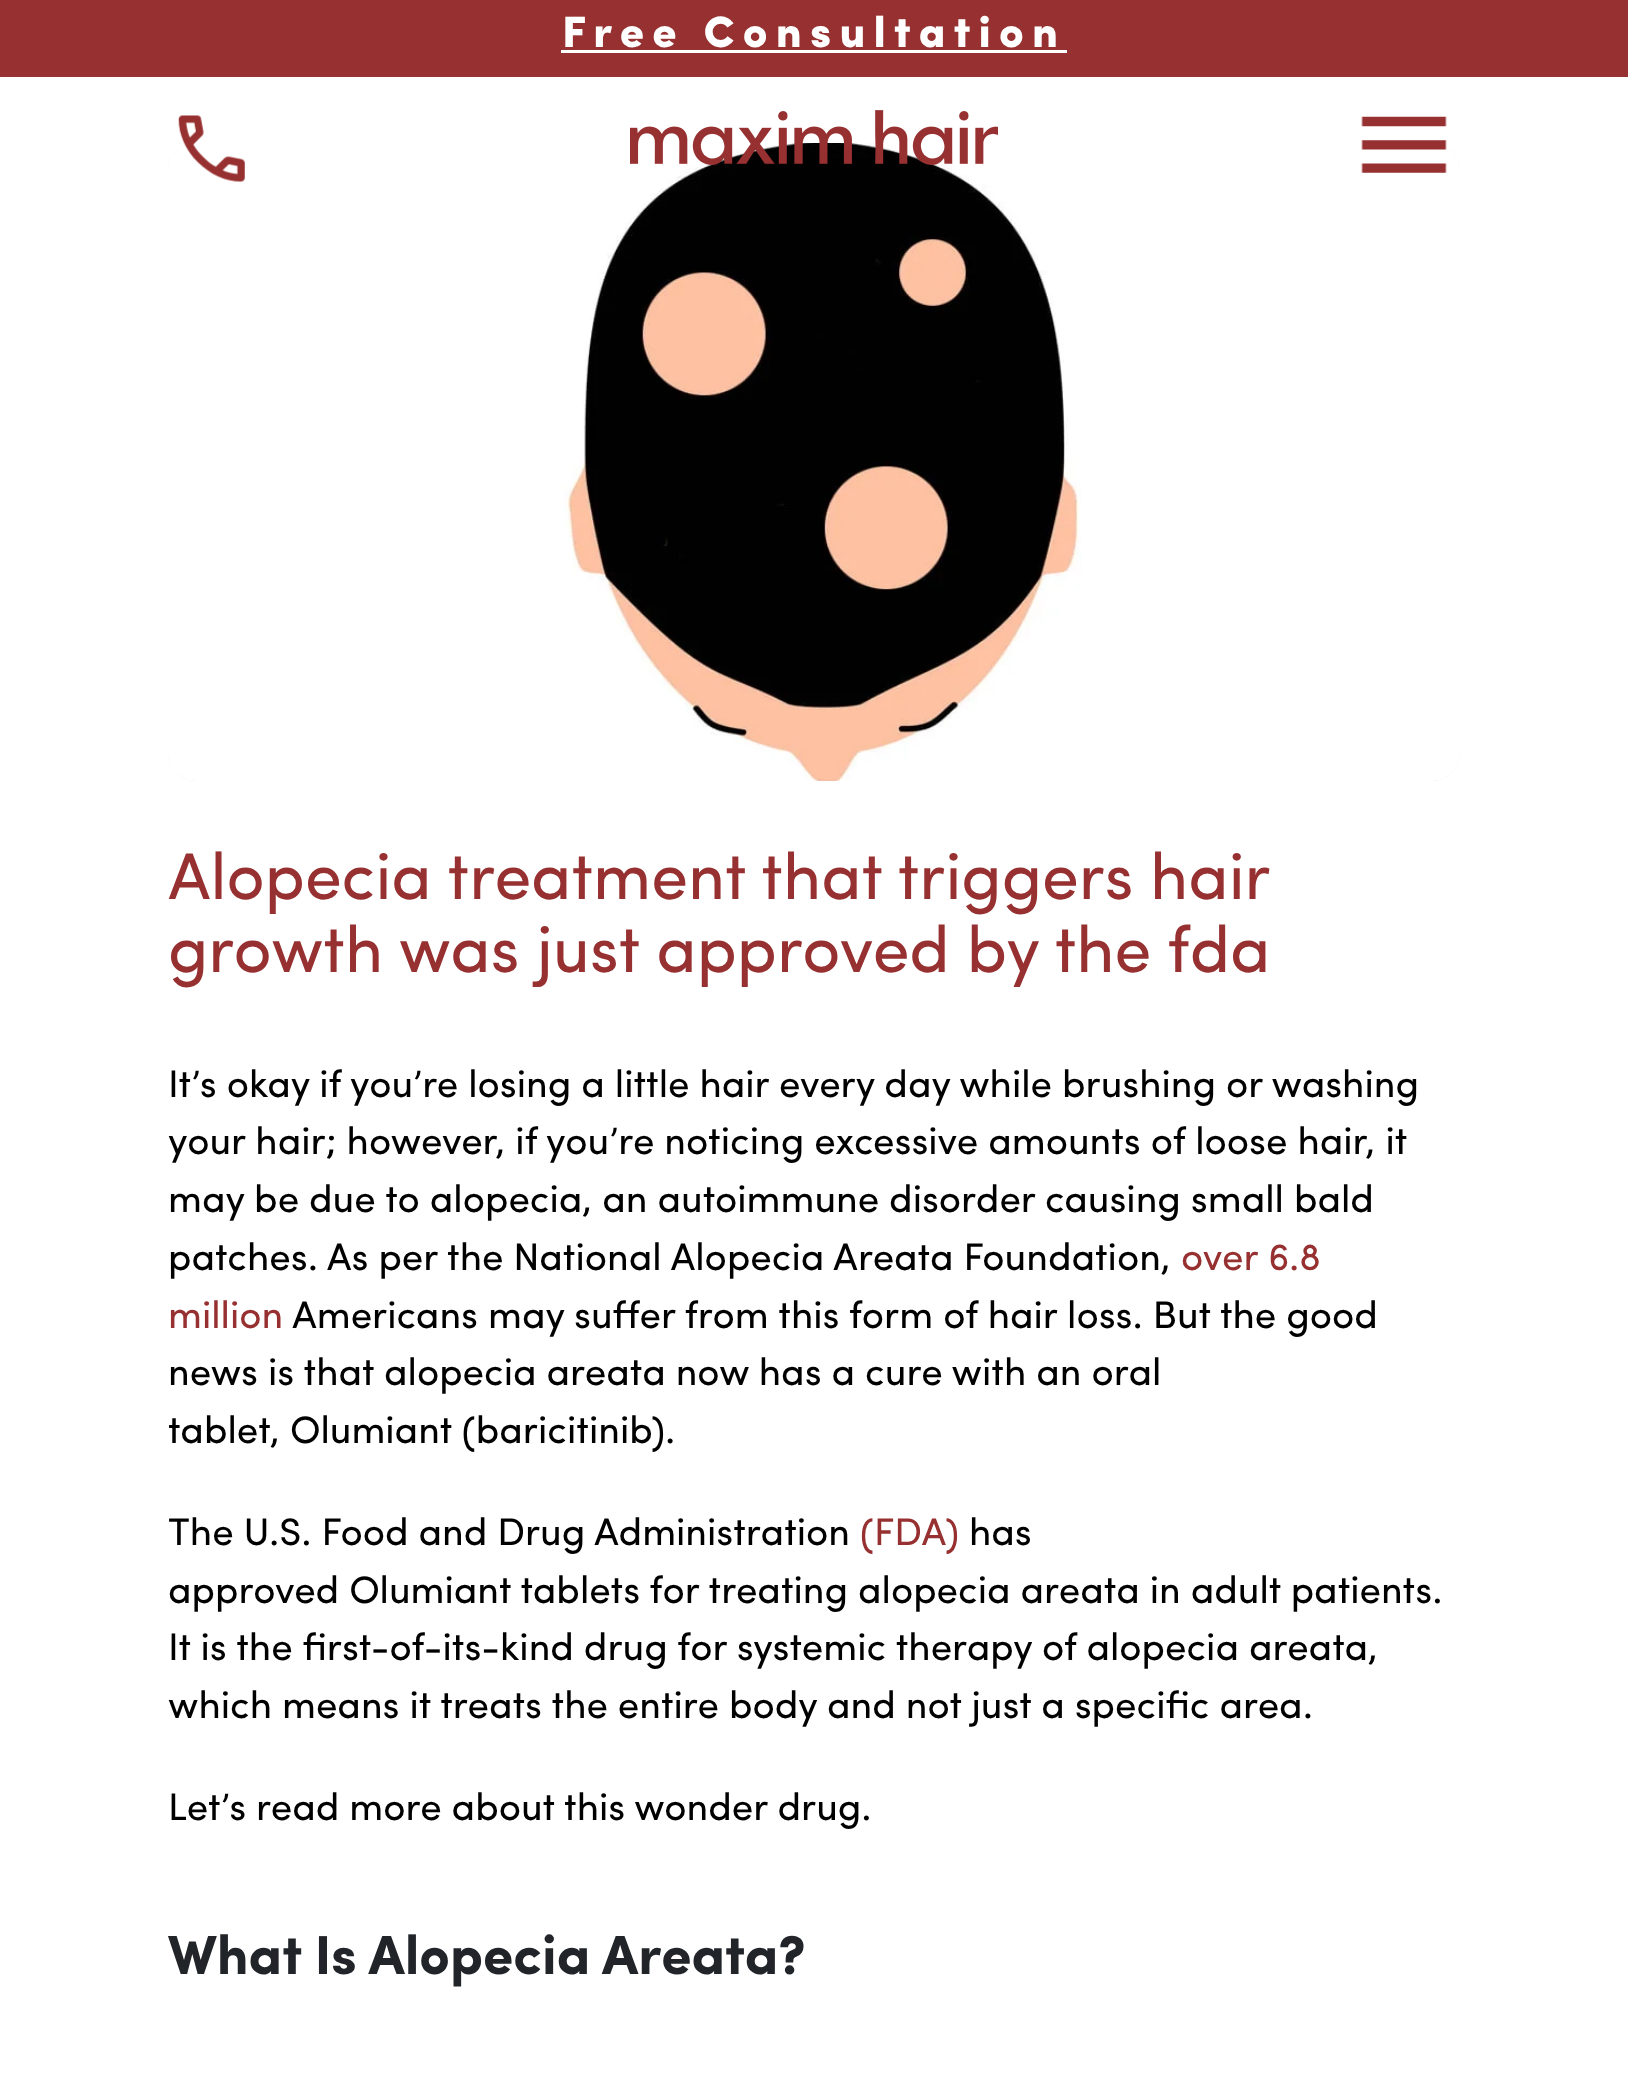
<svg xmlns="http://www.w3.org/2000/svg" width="1628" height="2085">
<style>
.a{font:900 44px Sofia;letter-spacing:8.25px;fill:#fff}
.b{font:66px Sofia;fill:#973030}
.c{font:38.5px Sofia;fill:#000}
.d{font:38.5px Sofia;fill:#973030}
.e{font:bold 55px Sofia;fill:#212529}
</style>
<rect width="100%" height="100%" fill="#fff"/>
<path fill="#973030" d="M0 0h1628v77H0z"/>
<path fill="#fff" d="M561 50h506v3H561z"/>
<rect fill="#d9d9d9" x="168" y="143" width="1292" height="638" rx="28"/>
<image href="4.png" x="168" y="143" width="1292" height="638"/>
<image href="1.png" x="178" y="115" width="67" height="67"/>
<image href="2.png" x="630" y="110" width="368" height="55"/>
<image href="3.png" x="1361" y="116" width="86" height="57"/>
<text class="a" x="562" y="47">Free Consultation</text>
<text class="b" x="168" y="899" word-spacing="-0.5">Alopecia treatment that triggers hair</text>
<text class="b" x="168" y="972">growth was just approved by the fda</text>
<text class="c" x="168" y="1097">It’s okay if you’re losing a little hair every day while brushing or washing</text>
<text class="c" x="168" y="1154">your hair; however, if you’re noticing excessive amounts of loose hair, it</text>
<text class="c" x="168" y="1212">may be due to alopecia, an autoimmune disorder causing small bald</text>
<text class="c" x="168" y="1270">patches. As per the National Alopecia Areata Foundation,</text>
<text class="d" x="1181" y="1270">over 6.8</text>
<text class="d" x="168" y="1328">million</text>
<text class="c" x="292" y="1328">Americans may suffer from this form of hair loss. But the good</text>
<text class="c" x="168" y="1385">news is that alopecia areata now has a cure with an oral</text>
<text class="c" x="168" y="1443">tablet, Olumiant (baricitinib).</text>
<text class="c" x="168" y="1545">The U.S. Food and Drug Administration</text>
<text class="d" x="860" y="1545">(FDA)</text>
<text class="c" x="969" y="1545">has</text>
<text class="c" x="168" y="1603">approved Olumiant tablets for treating alopecia areata in adult patients.</text>
<text class="c" x="168" y="1660">It is the first-of-its-kind drug for systemic therapy of alopecia areata,</text>
<text class="c" x="168" y="1718">which means it treats the entire body and not just a specific area.</text>
<text class="c" x="168" y="1820">Let’s read more about this wonder drug.</text>
<text class="e" x="168" y="1974">What Is Alopecia Areata?</text>
</svg>
